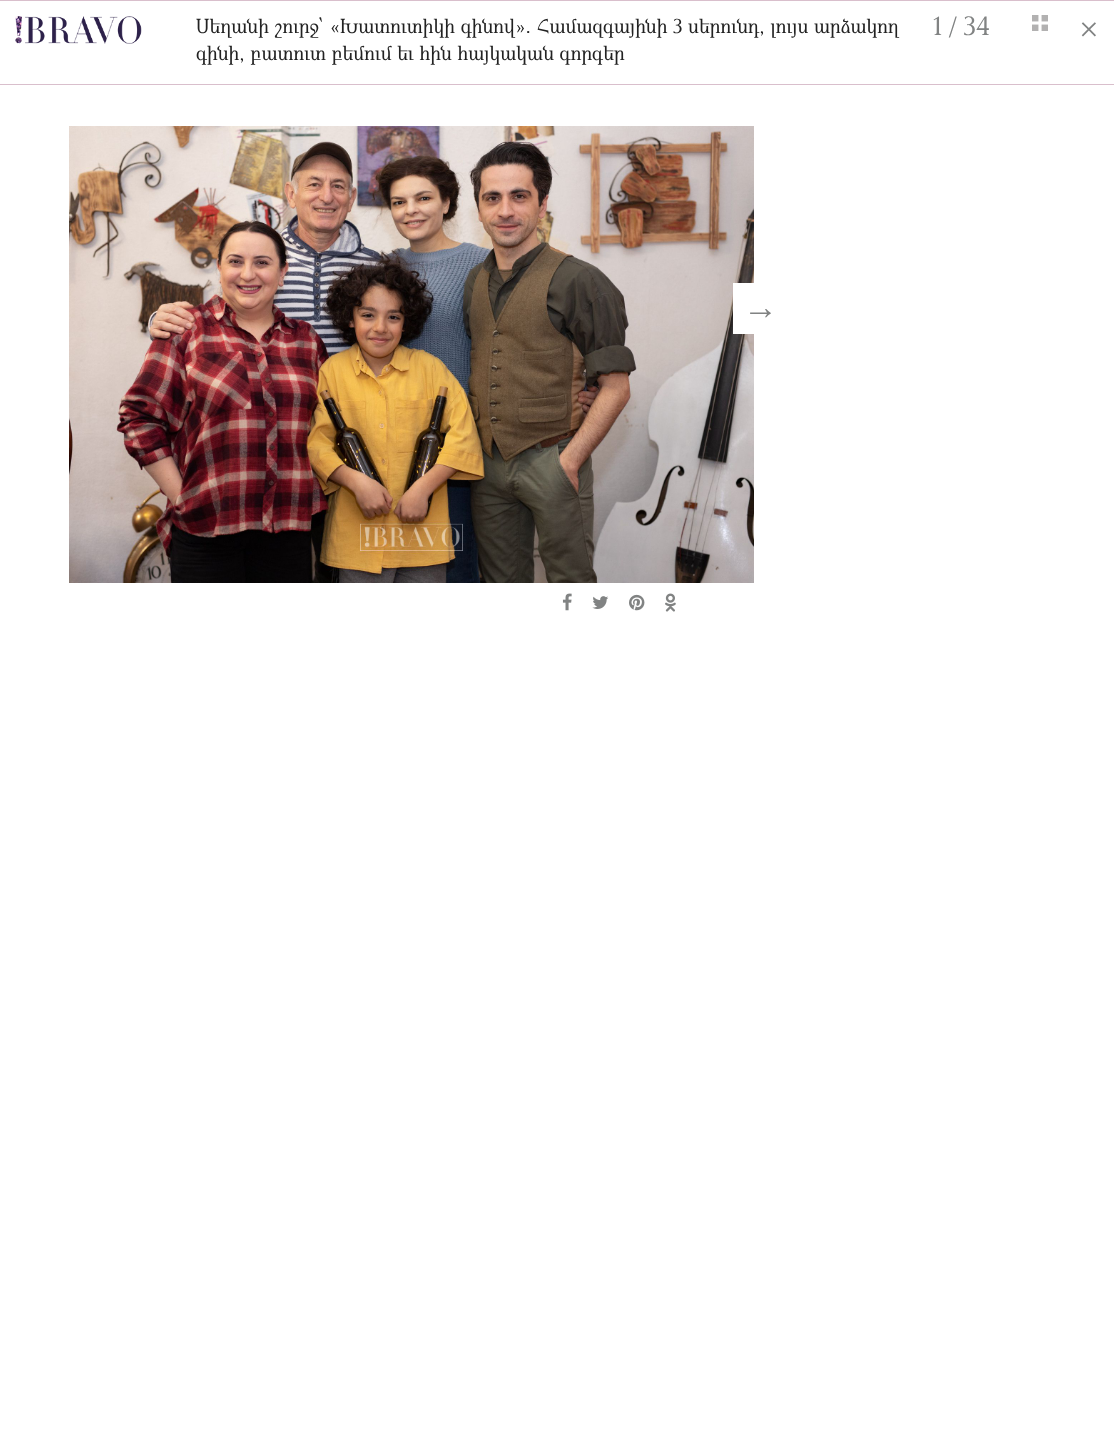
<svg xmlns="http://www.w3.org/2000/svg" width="1114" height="1453">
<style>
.a{font:19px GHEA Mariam;fill:#222}
.b{font:25px GHEA Mariam;fill:#818383}
.c{font:35px Liberation Serif;fill:#818383}
.d{font:italic 35px Liberation Serif;fill:#818383}
</style>
<rect width="100%" height="100%" fill="#fff"/>
<path fill="#d9bfcc" d="M0 0h1114v1H0z"/>
<path fill="#d9bfcc" d="M0 84h1114v1H0z"/>
<image href="1.png" x="15" y="16" width="127" height="28"/>
<image href="2.png" x="1032" y="15" width="16" height="16"/>
<image href="3.png" x="69" y="126" width="685" height="457"/>
<image href="4.png" x="562" y="593" width="10" height="18"/>
<image href="5.png" x="592" y="596" width="17" height="13"/>
<image href="6.png" x="629" y="594" width="16" height="17"/>
<image href="7.png" x="665" y="593" width="11" height="19"/>
<path fill="#fff" d="M733 283h21v51H733z"/>
<text class="a" x="196" y="33">Սեղանի շուրջ՝ «Խատուտիկի գինով». Համազգայինի 3 սերունդ, լույս արձակող</text>
<text class="a" x="196" y="60">գինի, բատուտ բեմում եւ հին հայկական գորգեր</text>
<text class="b" x="933" y="35">1 / 34</text>
<text class="c" x="1079" y="41">×</text>
<text class="d" x="743" y="319">→</text>
</svg>
